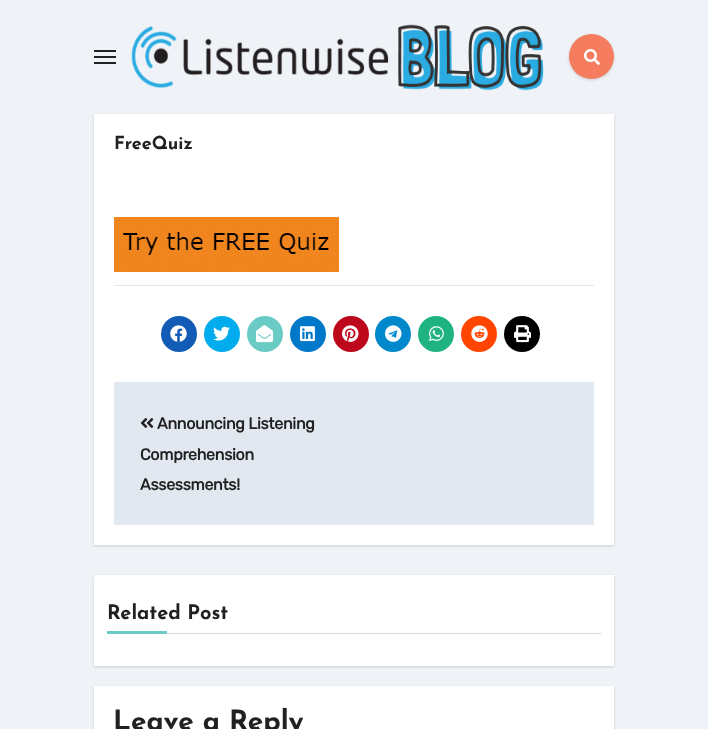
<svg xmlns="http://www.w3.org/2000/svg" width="708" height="729">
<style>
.a{font:bold 18px Josefin Sans;fill:#212121}
.b{font:bold 16px Rubik;letter-spacing:-0.3px;fill:#212121}
.c{font:bold 20px Josefin Sans;fill:#212121}
.d{font:bold 28px Josefin Sans;fill:#212121}
</style>
<rect width="100%" height="100%" fill="#eff2f7"/>
<path fill="#212121" d="M94 50h22v2H94z"/>
<path fill="#212121" d="M94 56h22v2H94z"/>
<path fill="#212121" d="M94 62h22v2H94z"/>
<image href="1.png" x="131" y="24" width="413" height="67"/>
<rect fill="#00000026" filter="blur(1.5px)" x="569" y="35" width="45" height="45" rx="22.5"/>
<circle fill="#f57c5e" cx="591.5" cy="56.5" r="22.5"/>
<image href="2.png" x="584" y="49" width="16" height="16"/>
<path fill="#00000026" filter="blur(1.5px)" d="M94 115h520v431H94z"/>
<path fill="#fff" d="M94 114h520v431H94z"/>
<image href="3.png" x="114" y="217" width="225" height="55"/>
<path fill="#e2e8f0" d="M114 285h480v1H114z"/>
<circle fill="#135cb6" cx="179" cy="334" r="18"/>
<image href="4.png" x="170" y="325" width="17" height="17"/>
<circle fill="#00aced" cx="222" cy="334" r="18"/>
<image href="5.png" x="213" y="326" width="17" height="15"/>
<circle fill="#6acac4" cx="265" cy="334" r="18"/>
<image href="6.png" x="256" y="325" width="17" height="18"/>
<circle fill="#0078ca" cx="308" cy="334" r="18"/>
<image href="7.png" x="300" y="326" width="15" height="16"/>
<circle fill="#bd081c" cx="351" cy="334" r="18"/>
<image href="8.png" x="342" y="325" width="17" height="17"/>
<circle fill="#08c" cx="393" cy="334" r="18"/>
<image href="9.png" x="385" y="325" width="17" height="17"/>
<circle fill="#1fb381" cx="436" cy="334" r="18"/>
<image href="10.png" x="429" y="326" width="15" height="15"/>
<circle fill="#ff4500" cx="479" cy="334" r="18"/>
<image href="11.png" x="471" y="325" width="17" height="17"/>
<circle fill="#000" cx="522" cy="334" r="18"/>
<image href="12.png" x="514" y="325" width="17" height="18"/>
<path fill="#e2e8f0" d="M114 382h480v143H114z"/>
<image href="13.png" x="140" y="418" width="14" height="10"/>
<path fill="#00000026" filter="blur(1.5px)" d="M94 576h520v91H94z"/>
<path fill="#fff" d="M94 575h520v91H94z"/>
<path fill="#d7d7d7" d="M167 633h434v1H167z"/>
<path fill="#6acac4" d="M107 631h60v3H107z"/>
<path fill="#00000026" filter="blur(1.5px)" d="M94 687h520v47H94z"/>
<path fill="#fff" d="M94 686h520v43H94z"/>
<text class="a" x="114" y="149">FreeQuiz</text>
<text class="b" x="157" y="429">Announcing Listening</text>
<text class="b" x="140" y="460">Comprehension</text>
<text class="b" x="140" y="490">Assessments!</text>
<text class="c" x="107" y="619">Related Post</text>
<text class="d" x="113" y="730">Leave a Reply</text>
</svg>
